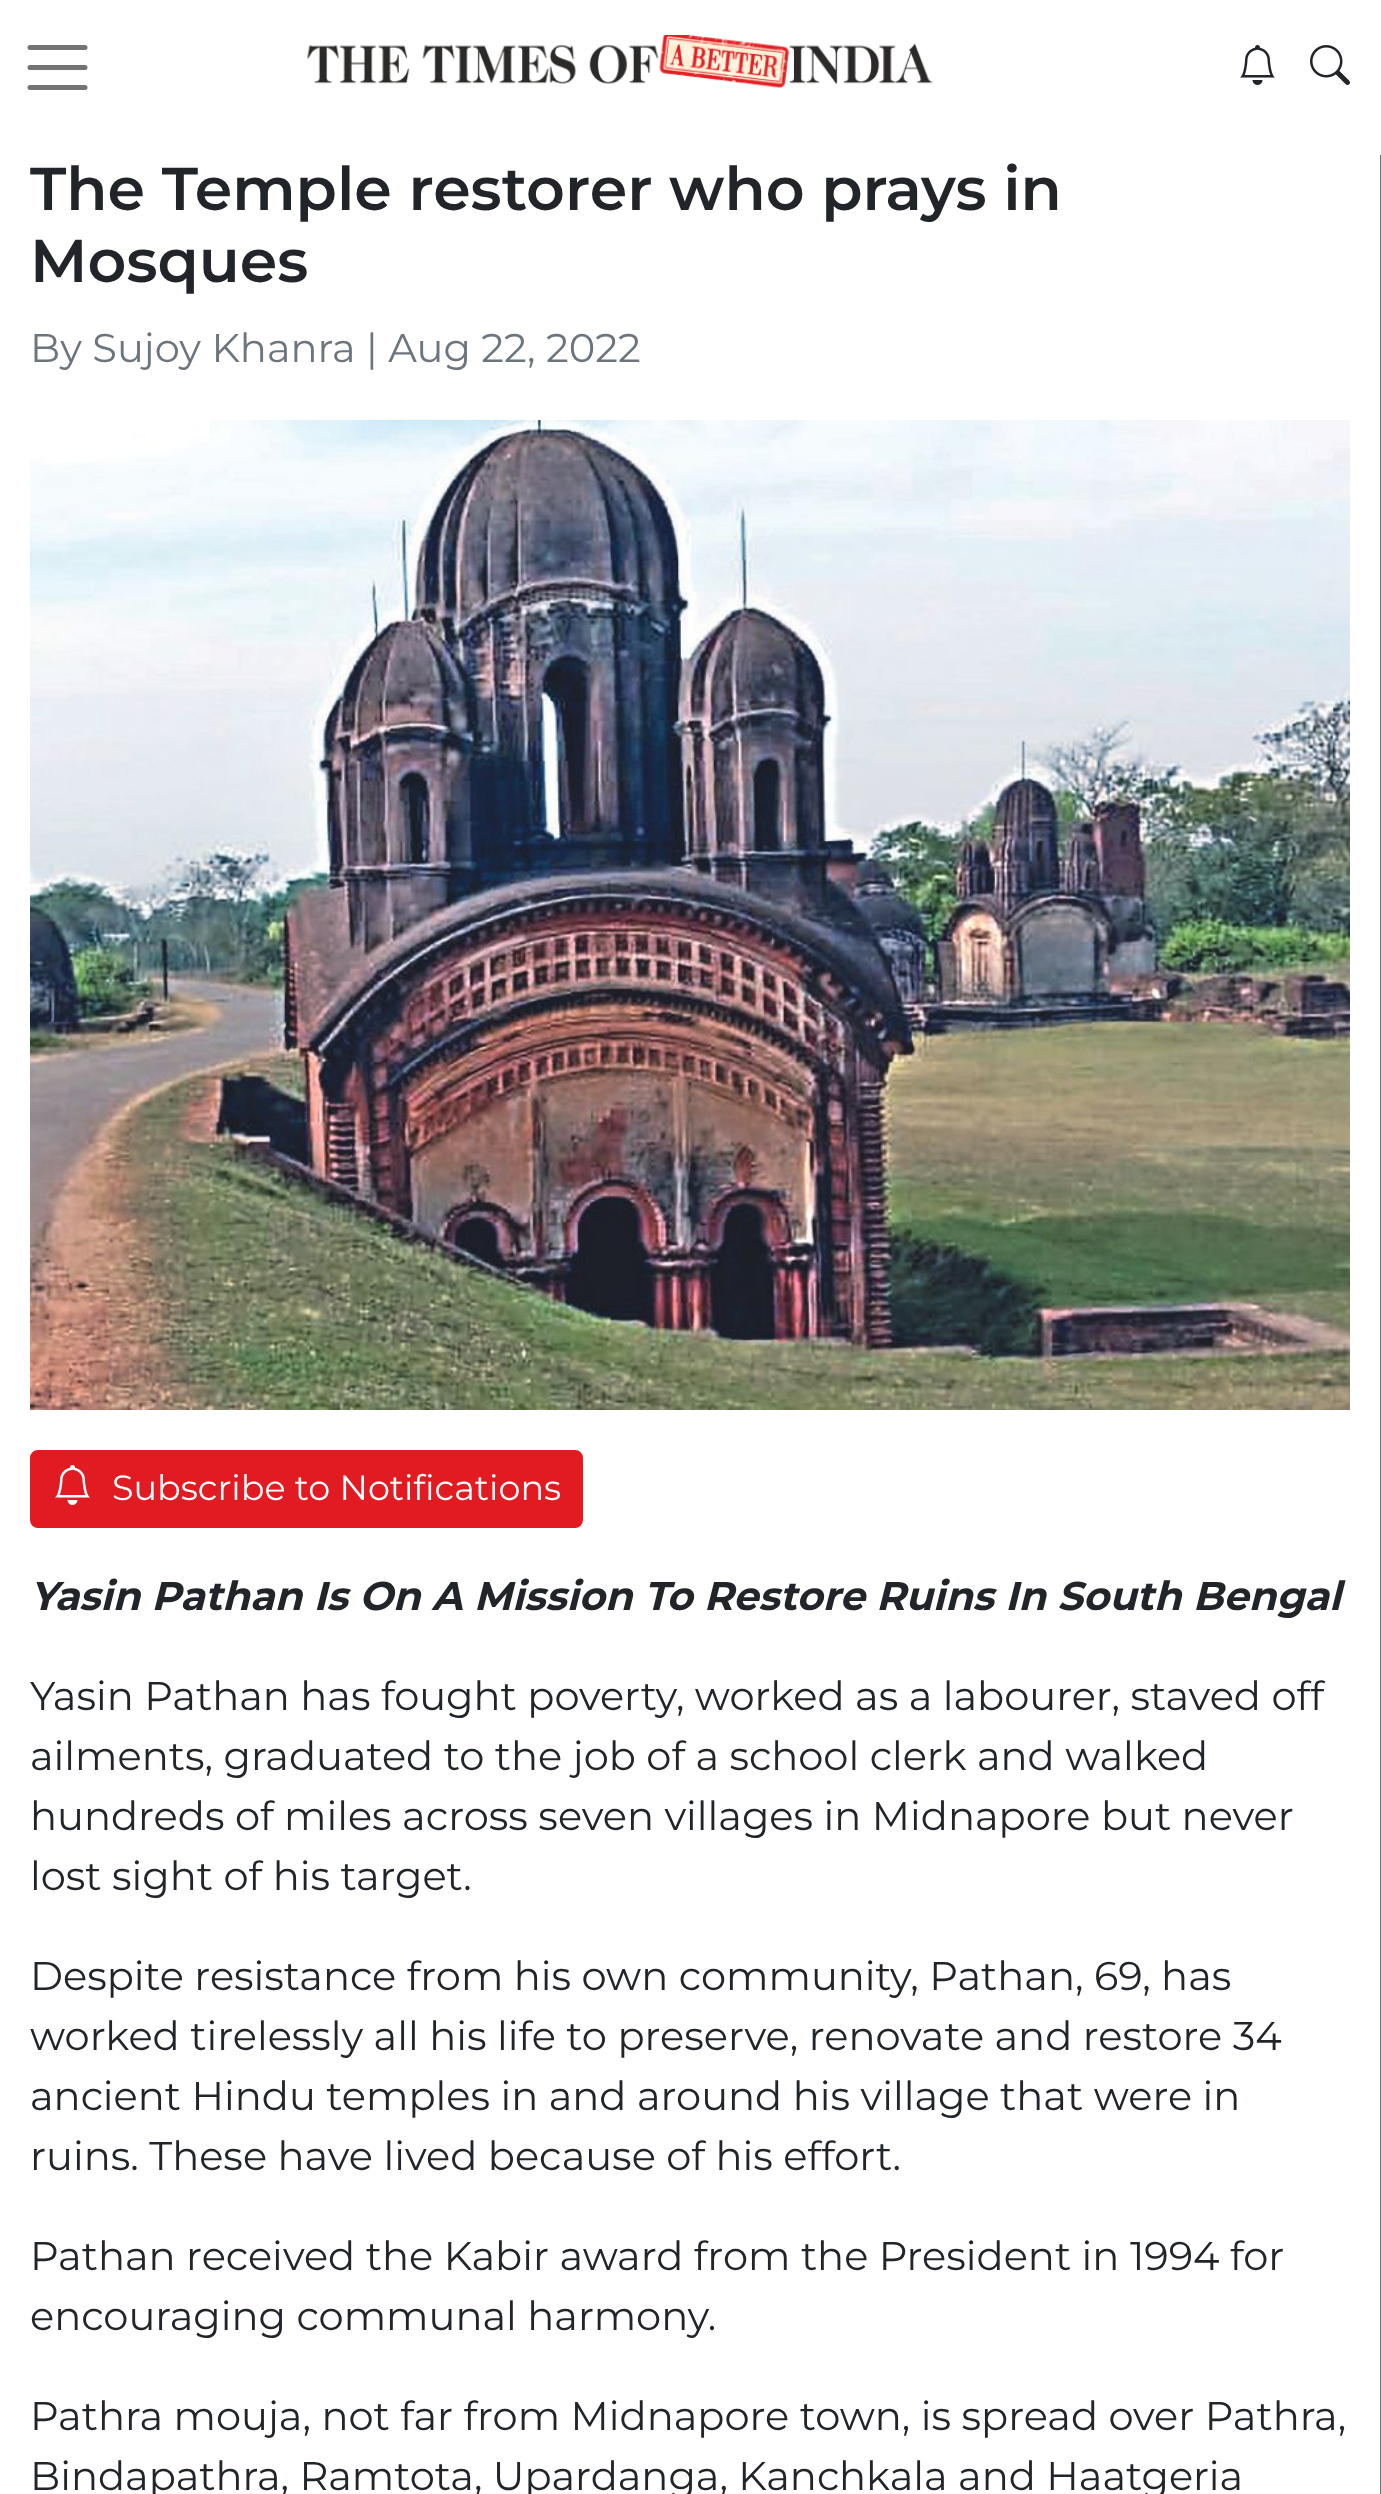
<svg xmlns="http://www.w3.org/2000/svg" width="1381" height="2494">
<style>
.a{font:600 60.25px Montserrat;fill:#212529}
.b{font:40px Montserrat;fill:#6c757d}
.c{font:35px Montserrat;fill:#fff}
.d{font:italic bold 40px Montserrat;fill:#212529}
.e{font:40px Montserrat;fill:#212529}
</style>
<rect width="100%" height="100%" fill="#fff"/>
<path fill="none" stroke="#737373" stroke-width="5" stroke-linecap="round" d="M30 47.5h55m-55 20h55m-55 20h55"/>
<image href="1.png" x="307" y="35" width="626" height="53"/>
<image href="2.png" x="1240" y="45" width="35" height="40"/>
<image href="3.png" x="1310" y="45" width="40" height="40"/>
<path fill="#6c757d" d="M1380 155h1v2339H1380z"/>
<image href="4.png" x="30" y="420" width="1320" height="990"/>
<rect fill="#e21b22" stroke="#e21b22" stroke-width="3" x="31.5" y="1451.5" width="550" height="75" rx="6.5"/>
<image href="5.png" x="55" y="1465" width="35" height="40"/>
<text class="a" x="30" y="210">The Temple restorer who prays in</text>
<text class="a" x="30" y="282">Mosques</text>
<text class="b" x="30" y="362">By Sujoy Khanra | Aug 22, 2022</text>
<text class="c" x="112" y="1500">Subscribe to Notifications</text>
<text class="d" x="30" y="1610">Yasin Pathan Is On A Mission To Restore Ruins In South Bengal</text>
<text class="e" x="30" y="1710">Yasin Pathan has fought poverty, worked as a labourer, staved off</text>
<text class="e" x="30" y="1770">ailments, graduated to the job of a school clerk and walked</text>
<text class="e" x="30" y="1830">hundreds of miles across seven villages in Midnapore but never</text>
<text class="e" x="30" y="1890">lost sight of his target.</text>
<text class="e" x="30" y="1990">Despite resistance from his own community, Pathan, 69, has</text>
<text class="e" x="30" y="2050">worked tirelessly all his life to preserve, renovate and restore 34</text>
<text class="e" x="30" y="2110">ancient Hindu temples in and around his village that were in</text>
<text class="e" x="30" y="2170">ruins. These have lived because of his effort.</text>
<text class="e" x="30" y="2270">Pathan received the Kabir award from the President in 1994 for</text>
<text class="e" x="30" y="2330">encouraging communal harmony.</text>
<text class="e" x="30" y="2430">Pathra mouja, not far from Midnapore town, is spread over Pathra,</text>
<text class="e" x="30" y="2490">Bindapathra, Ramtota, Upardanga, Kanchkala and Haatgeria</text>
</svg>
